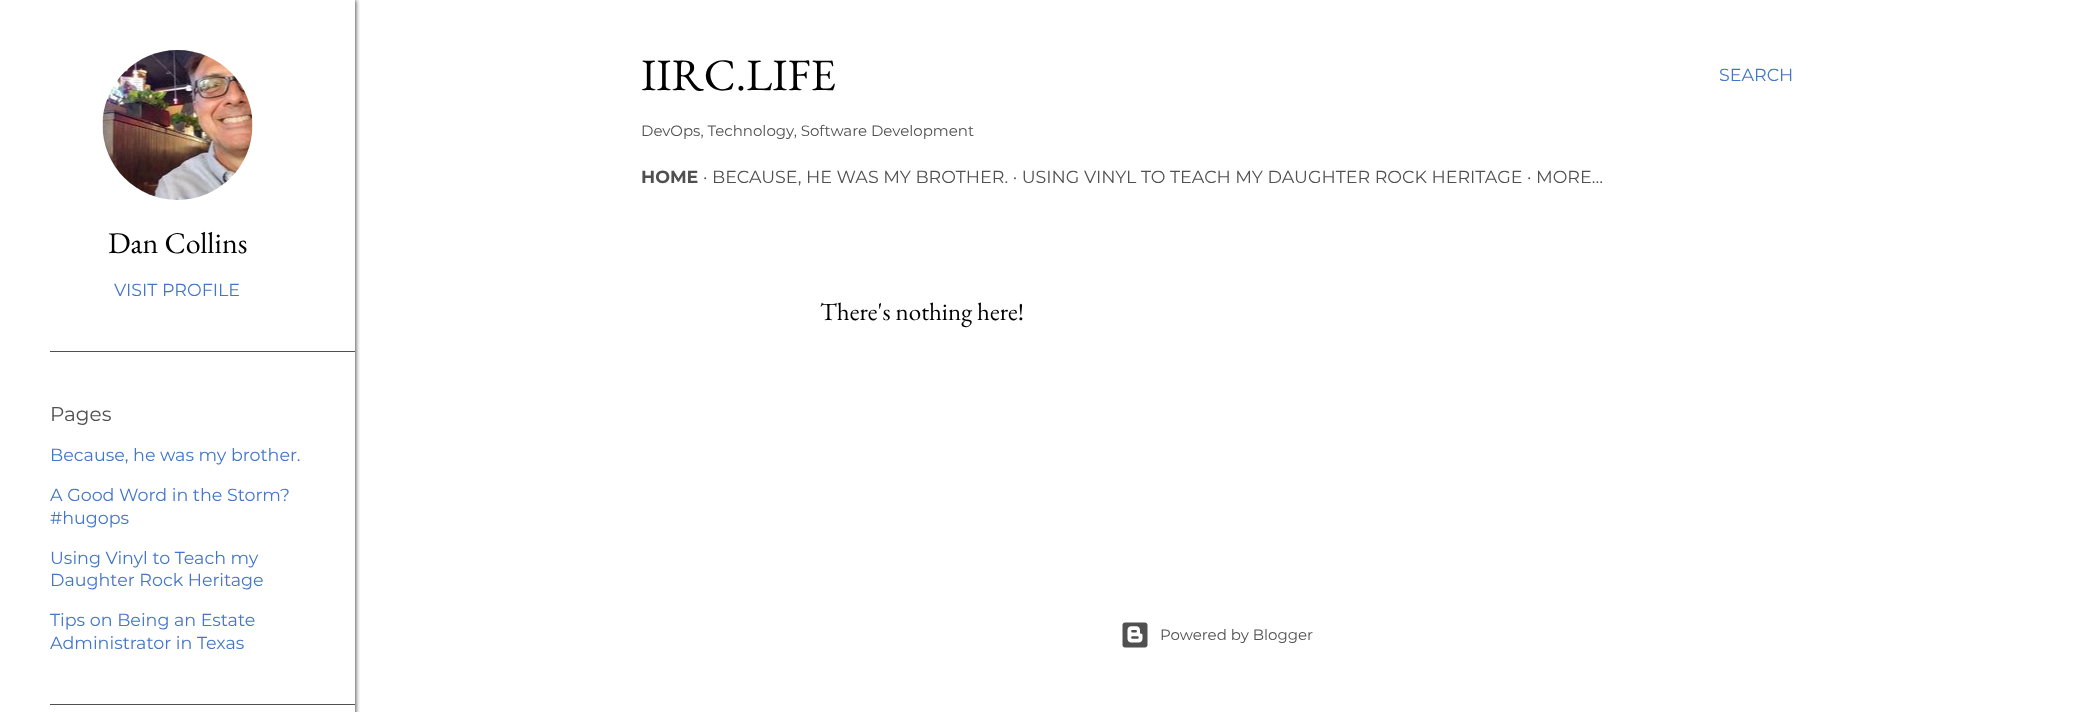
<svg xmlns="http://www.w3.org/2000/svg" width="2078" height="712">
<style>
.a{font:30px EB Garamond;fill:#000}
.b{font:17.5px Montserrat;fill:#4376c8}
.c{font:20px Montserrat;fill:#505050}
.d{font:45px EB Garamond;fill:#000}
.e{font:15px Montserrat;fill:#505050}
.f{font:bold 17.5px Montserrat;fill:#505050}
.g{font:17.5px Montserrat;fill:#505050}
.h{font:25px EB Garamond;fill:#000}
</style>
<defs>
<clipPath id="clip1"><path d="M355 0h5v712H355z"/></clipPath>
</defs>
<rect width="100%" height="100%" fill="#fff"/>
<g clip-path="url(#clip1)">
<path fill="#505050" filter="blur(2px)" d="M1 0h355v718H1z"/>
</g>
<image href="1.png" x="102" y="50" width="151" height="150"/>
<path fill="#505050" d="M50 351h305v1H50z"/>
<path fill="#505050" d="M50 704h305v1H50z"/>
<image href="2.png" x="1122" y="622" width="26" height="26"/>
<text class="a" x="108" y="253">Dan Collins</text>
<text class="b" x="114" y="296">VISIT PROFILE</text>
<text class="c" x="50" y="421">Pages</text>
<text class="b" x="50" y="461">Because, he was my brother.</text>
<text class="b" x="50" y="501">A Good Word in the Storm?</text>
<text class="b" x="50" y="524">#hugops</text>
<text class="b" x="50" y="564">Using Vinyl to Teach my</text>
<text class="b" x="50" y="586">Daughter Rock Heritage</text>
<text class="b" x="50" y="626">Tips on Being an Estate</text>
<text class="b" x="50" y="649">Administrator in Texas</text>
<text class="d" x="641" y="90">IIRC.LIFE</text>
<text class="e" x="641" y="136">DevOps, Technology, Software Development</text>
<text class="f" x="641" y="183">HOME</text>
<text class="g" x="703" y="183">· BECAUSE, HE WAS MY BROTHER. · USING VINYL TO TEACH MY DAUGHTER ROCK HERITAGE · MORE…</text>
<text class="b" x="1719" y="81">SEARCH</text>
<text class="h" x="820" y="320">There's nothing here!</text>
<text class="e" x="1160" y="640">Powered by Blogger</text>
</svg>
